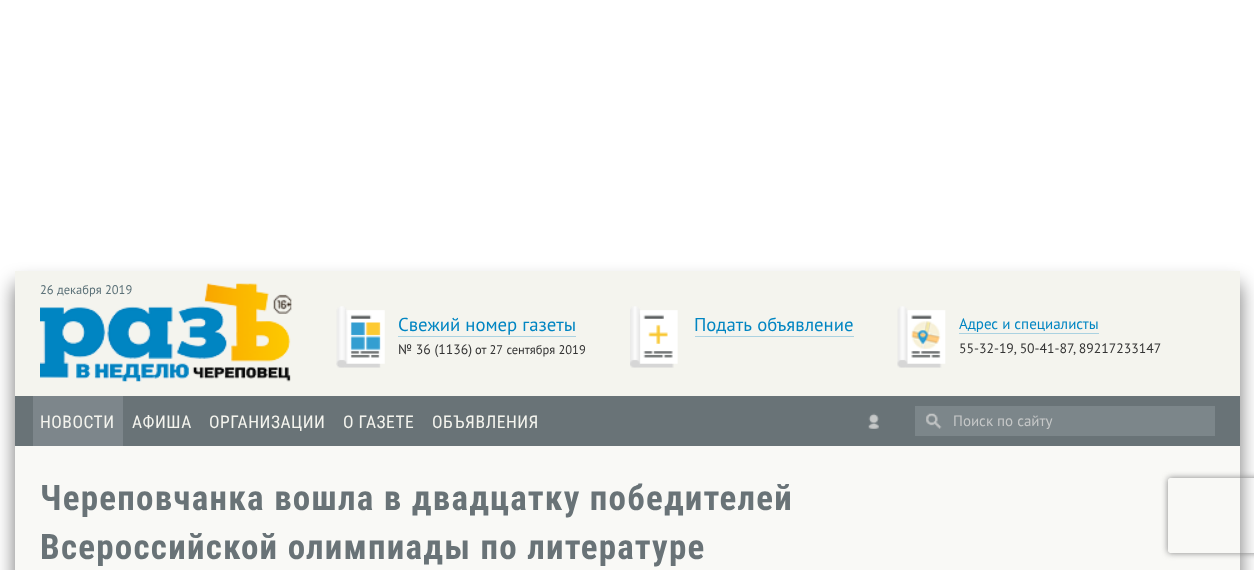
<svg xmlns="http://www.w3.org/2000/svg" width="1254" height="570">
<style>
.a{font:12.5px PT Sans;fill:#5b7178}
.b{font:18.75px PT Sans;fill:#0085c2}
.c{font:13.75px PT Sans;fill:#333}
.d{font:12.5px PT Sans;fill:#333}
.e{font:15px PT Sans;fill:#0085c2}
.f{font:17.5px Roboto Condensed;letter-spacing:0.5px;fill:#f4f4ee}
.g{font:15px PT Sans;fill:#c6c8c8}
.h{font:bold 35px Roboto Condensed;letter-spacing:1.25px;fill:#697377}
</style>
<defs>
<clipPath id="clip1"><path d="M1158 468h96v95h-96zm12.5 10h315c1.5 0 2.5 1 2.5 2.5v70c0 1.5-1 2.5-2.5 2.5h-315c-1.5 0-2.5-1-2.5-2.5v-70c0-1.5 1-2.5 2.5-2.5z" clip-rule="evenodd"/></clipPath>
</defs>
<rect width="100%" height="100%" fill="#fff"/>
<path fill="#0000008c" filter="blur(9.5px)" d="M15 284h1225v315H15z"/>
<path fill="#f9f9f6" d="M15 446h1225v124H15z"/>
<path fill="#f4f4ee" d="M15 271h1225v125H15z"/>
<image href="1.png" x="40" y="283" width="252" height="99"/>
<image href="2.png" x="336" y="306" width="49" height="62"/>
<path fill="#aad2e1" d="M398 336h178v1H398z"/>
<image href="3.png" x="630" y="306" width="48" height="62"/>
<path fill="#aad2e1" d="M695 336h159v1H695z"/>
<image href="4.png" x="897" y="306" width="49" height="62"/>
<path fill="#aad2e1" d="M959 333h140v1H959z"/>
<path fill="#697377" d="M15 396h1225v50H15z"/>
<path fill="#7d868b" d="M33 396h90v50H33z"/>
<image href="5.png" x="868" y="413" width="11" height="16"/>
<path fill="#7c868a" d="M915 406h300v30H915z"/>
<image href="6.png" x="926" y="413" width="16" height="16"/>
<g clip-path="url(#clip1)">
<rect fill="#808080" filter="blur(3px)" x="1168" y="478" width="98" height="75" rx="2.5"/>
</g>
<text class="a" x="40" y="294">26 декабря 2019</text>
<text class="b" x="398" y="331">Свежий номер газеты</text>
<text class="c" x="398" y="354">№ 36 (1136)</text>
<text class="d" x="475" y="354">от 27 сентября 2019</text>
<text class="b" x="694" y="331" word-spacing="1">Подать объявление</text>
<text class="e" x="959" y="329">Адрес и специалисты</text>
<text class="c" x="959" y="353" word-spacing="-1">55-32-19, 50-41-87, 89217233147</text>
<text class="f" x="40" y="428">НОВОСТИ</text>
<text class="f" x="132" y="428">АФИША</text>
<text class="f" x="209" y="428">ОРГАНИЗАЦИИ</text>
<text class="f" x="343" y="428">О ГАЗЕТЕ</text>
<text class="f" x="432" y="428">ОБЪЯВЛЕНИЯ</text>
<text class="g" x="953" y="426">Поиск по сайту</text>
<text class="h" x="40" y="510">Череповчанка вошла в двадцатку победителей</text>
<text class="h" x="40" y="559">Всероссийской олимпиады по литературе</text>
</svg>
